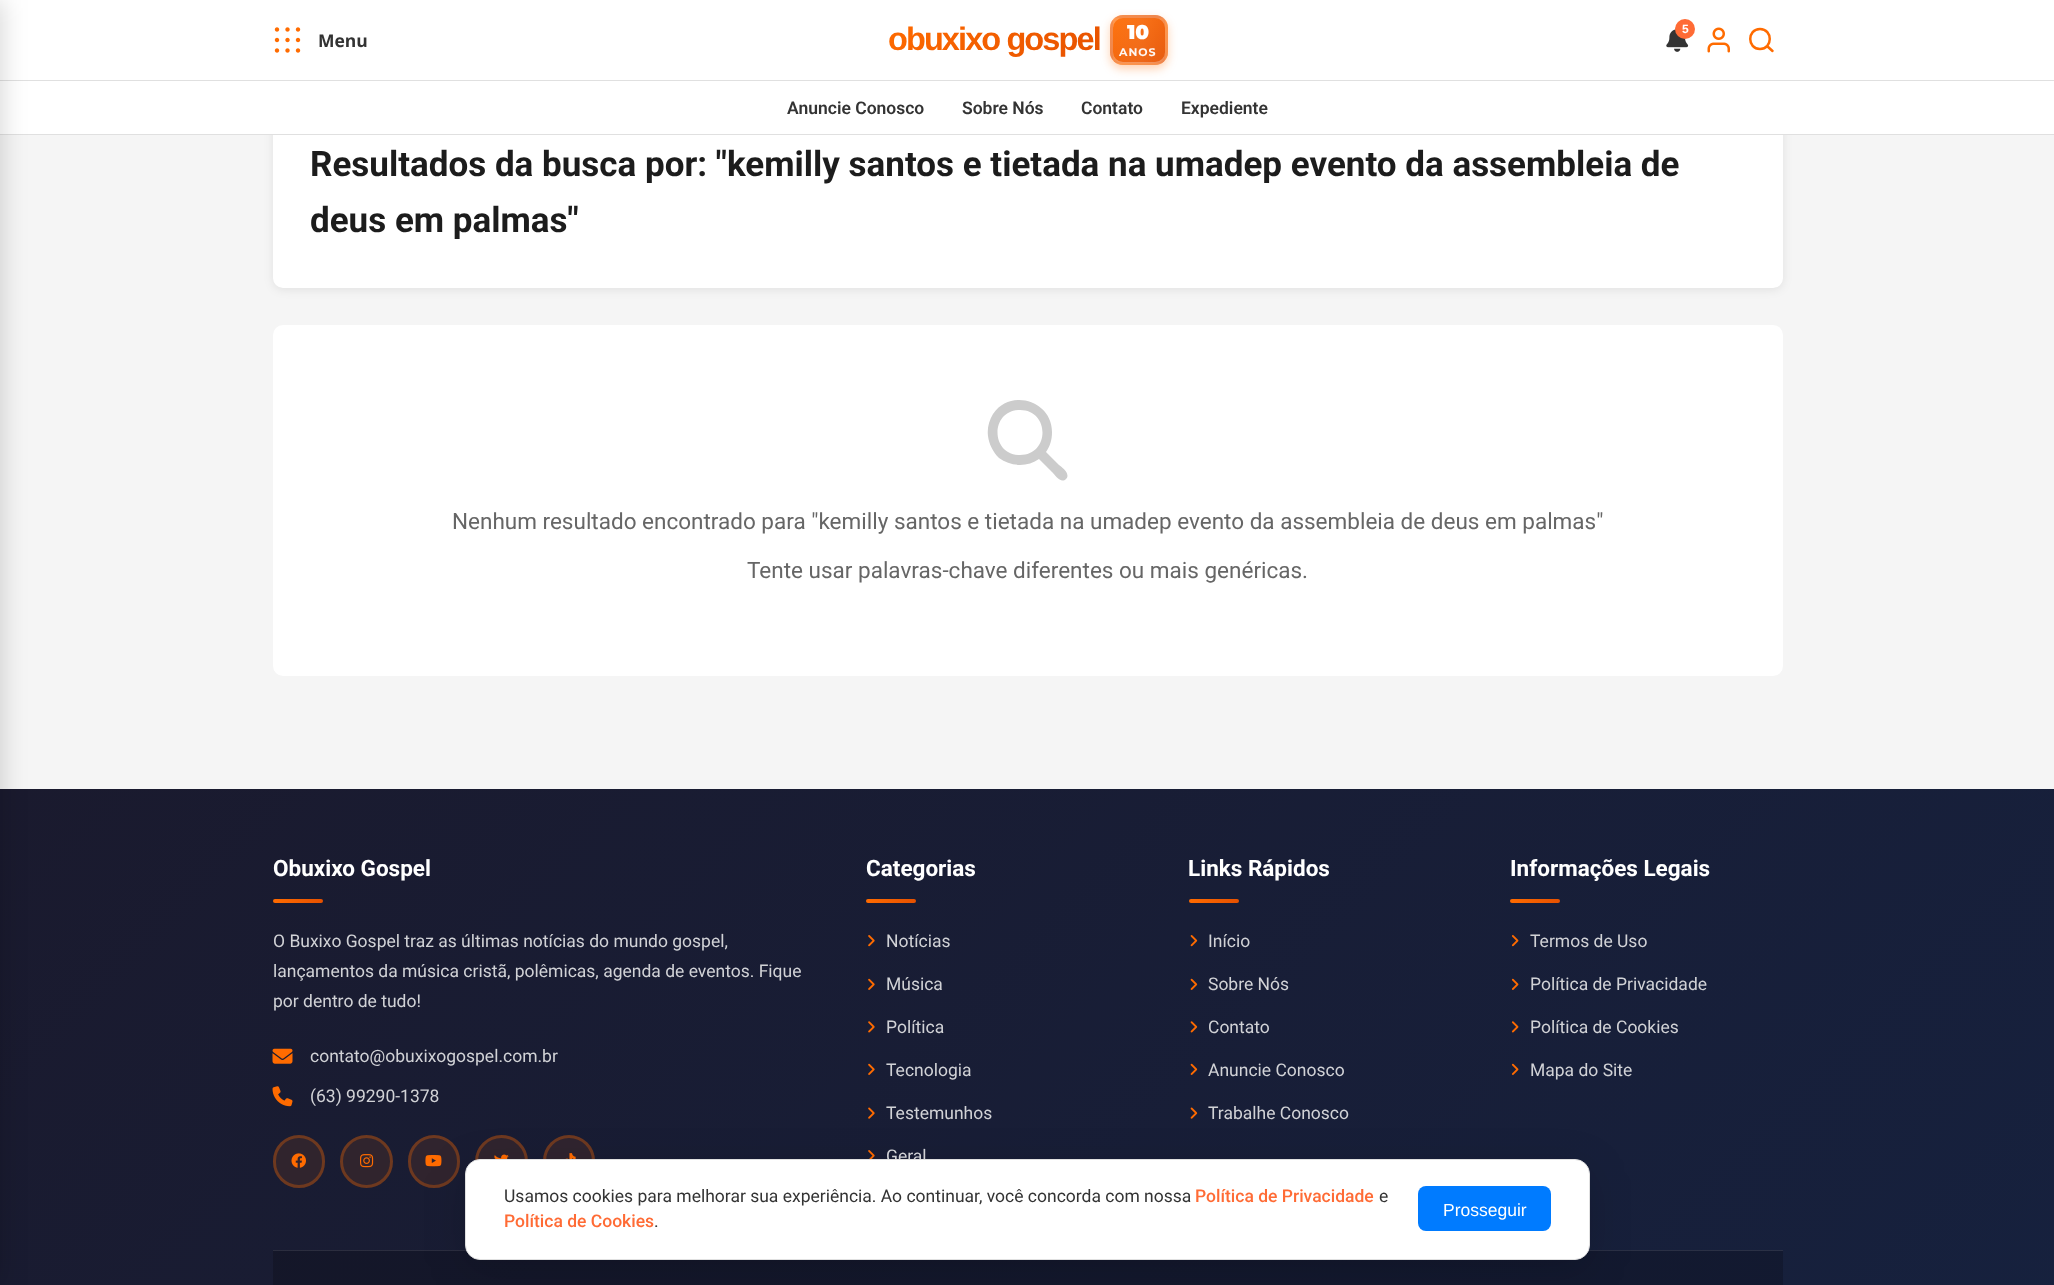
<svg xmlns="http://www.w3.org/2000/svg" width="2054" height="1285">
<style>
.a{font:bold 32.5px Liberation Sans;letter-spacing:-1.9px;fill:url(#g7)}
.b{font:900 20px Montserrat;fill:#fff}
.c{font:bold 11px Montserrat;letter-spacing:1px;fill:#fef7f3}
.d{font:bold 12px Liberation Sans;fill:#fff}
.e{font:bold 17.5px Open Sans;fill:#333}
.f{font:600 17.5px Roboto;fill:#333}
.g{font:bold 35px Roboto;fill:#1c1c1c}
.h{font:22.5px Roboto;fill:#666}
.i{font:bold 22.5px Roboto;fill:#fff}
.j{font:17.5px Roboto;fill:#d1d2d6}
.k{font:17.5px Roboto;fill:#333}
.l{font:500 17.5px Roboto;fill:#ff6b35}
.m{font:17.5px Liberation Sans;fill:#fff}
</style>
<defs>
<linearGradient id="g1" gradientUnits="userSpaceOnUse" x1="367" y1="422" x2="1688" y2="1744"><stop offset="0" stop-color="#1a1a2e"/><stop offset="1" stop-color="#16213e"/></linearGradient>
<clipPath id="clip1"><rect x="1110" y="15" width="58" height="50" rx="13"/></clipPath>
<linearGradient id="g2" gradientUnits="userSpaceOnUse" x1="1114" y1="-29" x2="1163" y2="19"><stop offset="0" stop-color="#ff6b00"/><stop offset="1" stop-color="#e65100"/></linearGradient>
<linearGradient id="g3" gradientUnits="userSpaceOnUse" x1="1062" y1="16" x2="1111" y2="64"><stop offset="0" stop-color="#ff6b00"/><stop offset="1" stop-color="#e65100"/></linearGradient>
<linearGradient id="g4" gradientUnits="userSpaceOnUse" x1="1114" y1="16" x2="1163" y2="64"><stop offset="0" stop-color="#ff6b00"/><stop offset="1" stop-color="#e65100"/></linearGradient>
<linearGradient id="g5" gradientUnits="userSpaceOnUse" x1="1167" y1="16" x2="1216" y2="64"><stop offset="0" stop-color="#ff6b00"/><stop offset="1" stop-color="#e65100"/></linearGradient>
<linearGradient id="g6" gradientUnits="userSpaceOnUse" x1="1114" y1="61" x2="1163" y2="109"><stop offset="0" stop-color="#ff6b00"/><stop offset="1" stop-color="#e65100"/></linearGradient>
<linearGradient id="g7" gradientUnits="userSpaceOnUse" x1="928" y1="-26" x2="1060" y2="106"><stop offset="0" stop-color="#ff6b00"/><stop offset="1" stop-color="#e65100"/></linearGradient>
<linearGradient id="g8" gradientUnits="userSpaceOnUse" x1="1070" y1="40" x2="1207" y2="40"><stop offset="0" stop-color="#fff" stop-opacity="0"/><stop offset="0.5" stop-color="#fff" stop-opacity="0.1"/><stop offset="1" stop-color="#fff" stop-opacity="0"/></linearGradient>
<linearGradient id="g9" gradientUnits="userSpaceOnUse" x1="367" y1="422" x2="1688" y2="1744"><stop offset="0" stop-color="#151525"/><stop offset="1" stop-color="#121a32"/></linearGradient>
<linearGradient id="g10" gradientUnits="userSpaceOnUse" x1="367" y1="422" x2="1688" y2="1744"><stop offset="0" stop-color="#2c2c3b"/><stop offset="1" stop-color="#2a3147"/></linearGradient>
<linearGradient id="g11" gradientUnits="userSpaceOnUse" x1="273" y1="901" x2="323" y2="901"><stop offset="0" stop-color="#ff6b00"/><stop offset="1" stop-color="#e65100"/></linearGradient>
<linearGradient id="g12" gradientUnits="userSpaceOnUse" x1="866" y1="901" x2="916" y2="901"><stop offset="0" stop-color="#ff6b00"/><stop offset="1" stop-color="#e65100"/></linearGradient>
<linearGradient id="g13" gradientUnits="userSpaceOnUse" x1="1189" y1="901" x2="1239" y2="901"><stop offset="0" stop-color="#ff6b00"/><stop offset="1" stop-color="#e65100"/></linearGradient>
<linearGradient id="g14" gradientUnits="userSpaceOnUse" x1="1510" y1="901" x2="1560" y2="901"><stop offset="0" stop-color="#ff6b00"/><stop offset="1" stop-color="#e65100"/></linearGradient>
</defs>
<rect width="100%" height="100%" fill="#f5f5f5"/>
<rect fill="#00000014" filter="blur(5px)" x="273" y="103" width="1510" height="187" rx="10"/>
<rect fill="#fff" x="273" y="100" width="1510" height="188" rx="10"/>
<path fill="#fff" d="M0 0h2054v134H0z"/>
<path fill="#e0e0e0" d="M0 80h2054v1H0z"/>
<path fill="#e0e0e0" d="M0 134h2054v1H0z"/>
<path fill="url(#g1)" d="M0 789h2054v496H0z"/>
<path fill="#00000026" filter="blur(12.5px)" d="M-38 0h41v1285H-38z"/>
<rect fill="#ff6b004d" filter="blur(5px)" x="1110" y="19" width="58" height="50" rx="13"/>
<g clip-path="url(#clip1)">
<path fill="url(#g2)" d="M1113 15h52v3H1113z"/>
<path fill="url(#g3)" d="M1110 18h3v45H1110z"/>
<path fill="url(#g4)" d="M1113 18h52v45H1113z"/>
<path fill="url(#g5)" d="M1165 18h3v45H1165z"/>
<path fill="url(#g6)" d="M1113 63h52v2H1113z"/>
</g>
<rect fill="none" stroke="#ffffff4d" stroke-width="3" x="1111.5" y="16.5" width="55" height="47" rx="11.5"/>
<path fill="url(#g8)" d="M1123 18c-6 0-10 4-10 10v25c0 6 4 10 10 10h32c6 0 10-4 10-10v-25c0-6-4-10-10-10z"/>
<image href="1.png" x="1666" y="27" width="23" height="25"/>
<circle fill="#ff6b35" cx="1685" cy="29" r="10"/>
<image href="2.png" x="1707" y="27" width="23" height="26"/>
<path fill="none" stroke="#ff6b00" stroke-width="2.5" stroke-linecap="round" stroke-linejoin="round" d="M1760 49c13 0 13-20 0-20c-13 0-13 20 0 20zm12.5 2l-5.5-5"/>
<image href="3.png" x="274" y="27" width="27" height="26"/>
<rect fill="#fff" x="273" y="325" width="1510" height="351" rx="10"/>
<path fill="#ccc" d="M1052 432c0 8-2 14-6 20l13 13c3 2 12 9 7 14c-5 5-11-4-14-7l-13-13c-11 8-28 8-40-1c-6-6-10-14-11-22c-1-8 1-15 5-22c18-26 59-13 59 18zm-32 23c30 0 30-45 0-45c-30 0-30 45 0 45z"/>
<path fill="url(#g9)" d="M273 1251h1510v34H273z"/>
<path fill="url(#g10)" d="M273 1250h1510v1H273z"/>
<rect fill="url(#g11)" x="273" y="899" width="50" height="4" rx="2"/>
<image href="4.png" x="272" y="1048" width="21" height="16"/>
<image href="5.png" x="272" y="1086" width="21" height="21"/>
<rect fill="#30242d" x="273" y="1135" width="52" height="53" rx="26"/>
<rect fill="none" stroke="#ff6b004d" stroke-width="3" x="274.5" y="1136.5" width="49" height="50" rx="24.5"/>
<image href="6.png" x="291" y="1153" width="15" height="15"/>
<circle fill="#30242d" cx="366.5" cy="1161.5" r="26.5"/>
<circle fill="none" stroke="#ff6b004d" stroke-width="3" cx="366.5" cy="1161.5" r="25"/>
<image href="7.png" x="360" y="1154" width="14" height="14"/>
<rect fill="#30242e" x="408" y="1135" width="52" height="53" rx="26"/>
<rect fill="none" stroke="#ff6b004d" stroke-width="3" x="409.5" y="1136.5" width="49" height="50" rx="24.5"/>
<image href="8.png" x="425" y="1155" width="17" height="12"/>
<circle fill="#30242e" cx="501.5" cy="1161.5" r="26.5"/>
<circle fill="none" stroke="#ff6b004d" stroke-width="3" cx="501.5" cy="1161.5" r="25"/>
<image href="9.png" x="494" y="1154" width="15" height="5"/>
<rect fill="#30242f" x="543" y="1135" width="52" height="53" rx="26"/>
<rect fill="none" stroke="#ff6b004d" stroke-width="3" x="544.5" y="1136.5" width="49" height="50" rx="24.5"/>
<image href="10.png" x="565" y="1153" width="11" height="6"/>
<rect fill="url(#g12)" x="866" y="899" width="50" height="4" rx="2"/>
<image href="11.png" x="868" y="935" width="7" height="12"/>
<image href="12.png" x="868" y="978" width="7" height="12"/>
<image href="13.png" x="868" y="1021" width="7" height="12"/>
<image href="14.png" x="868" y="1063" width="7" height="12"/>
<image href="15.png" x="868" y="1107" width="7" height="12"/>
<image href="16.png" x="868" y="1150" width="7" height="9"/>
<rect fill="url(#g13)" x="1189" y="899" width="50" height="4" rx="2"/>
<image href="17.png" x="1190" y="935" width="8" height="12"/>
<image href="18.png" x="1190" y="978" width="8" height="12"/>
<image href="19.png" x="1190" y="1021" width="8" height="12"/>
<image href="20.png" x="1190" y="1063" width="8" height="12"/>
<image href="21.png" x="1190" y="1107" width="8" height="12"/>
<rect fill="url(#g14)" x="1510" y="899" width="50" height="4" rx="2"/>
<image href="22.png" x="1511" y="935" width="8" height="12"/>
<image href="23.png" x="1511" y="978" width="8" height="12"/>
<image href="24.png" x="1511" y="1021" width="8" height="12"/>
<image href="25.png" x="1511" y="1063" width="8" height="12"/>
<rect fill="#00000026" filter="blur(20px)" x="465" y="1169" width="1125" height="101" rx="15"/>
<text class="a" x="888" y="50">obuxixo gospel</text>
<text class="b" x="1127" y="39">10</text>
<text class="c" x="1119" y="56">ANOS</text>
<text class="d" x="1682" y="33">5</text>
<text class="e" x="318" y="47">Menu</text>
<text class="f" x="787" y="114">Anuncie Conosco</text>
<text class="f" x="962" y="114">Sobre Nós</text>
<text class="f" x="1081" y="114">Contato</text>
<text class="f" x="1181" y="114">Expediente</text>
<text class="g" x="310" y="176">Resultados da busca por: "kemilly santos e tietada na umadep evento da assembleia de</text>
<text class="g" x="310" y="232">deus em palmas"</text>
<text class="h" x="452" y="529">Nenhum resultado encontrado para "kemilly santos e tietada na umadep evento da assembleia de deus em palmas"</text>
<text class="h" x="747" y="578">Tente usar palavras-chave diferentes ou mais genéricas.</text>
<text class="i" x="273" y="876">Obuxixo Gospel</text>
<text class="j" x="273" y="947">O Buxixo Gospel traz as últimas notícias do mundo gospel,</text>
<text class="j" x="273" y="977">lançamentos da</text>
<text class="j" x="402" y="977">música cristã, polêmicas, agenda de eventos. Fique</text>
<text class="j" x="273" y="1007">por dentro de tudo!</text>
<text class="j" x="310" y="1062">contato@obuxixogospel.com.br</text>
<text class="j" x="310" y="1102">(63) 99290-1378</text>
<text class="i" x="866" y="876">Categorias</text>
<text class="j" x="886" y="947">Notícias</text>
<text class="j" x="886" y="990">Música</text>
<text class="j" x="886" y="1033">Política</text>
<text class="j" x="886" y="1076">Tecnologia</text>
<text class="j" x="886" y="1119">Testemunhos</text>
<text class="j" x="886" y="1162">Geral</text>
<text class="i" x="1188" y="876">Links Rápidos</text>
<text class="j" x="1208" y="947">Início</text>
<text class="j" x="1208" y="990">Sobre Nós</text>
<text class="j" x="1208" y="1033">Contato</text>
<text class="j" x="1208" y="1076">Anuncie Conosco</text>
<text class="j" x="1208" y="1119">Trabalhe Conosco</text>
<text class="i" x="1510" y="876">Informações Legais</text>
<text class="j" x="1530" y="947">Termos de Uso</text>
<text class="j" x="1530" y="990">Política de Privacidade</text>
<text class="j" x="1530" y="1033">Política de Cookies</text>
<text class="j" x="1530" y="1076">Mapa do Site</text>
<rect fill="#fff" stroke="#e0e0e0" x="465.5" y="1159.5" width="1124" height="100" rx="14.5"/>
<text class="k" x="504" y="1202">Usamos cookies para melhorar sua experiência. Ao continuar, você concorda com nossa</text>
<text class="l" x="1195" y="1202">Política de Privacidade</text>
<text class="k" x="1379" y="1202">e</text>
<text class="l" x="504" y="1227">Política de Cookies</text>
<text class="k" x="654" y="1227">.</text>
<rect fill="#007bff" x="1418" y="1186" width="133" height="45" rx="8"/>
<text class="m" x="1443" y="1216">Prosseguir</text>
</svg>
